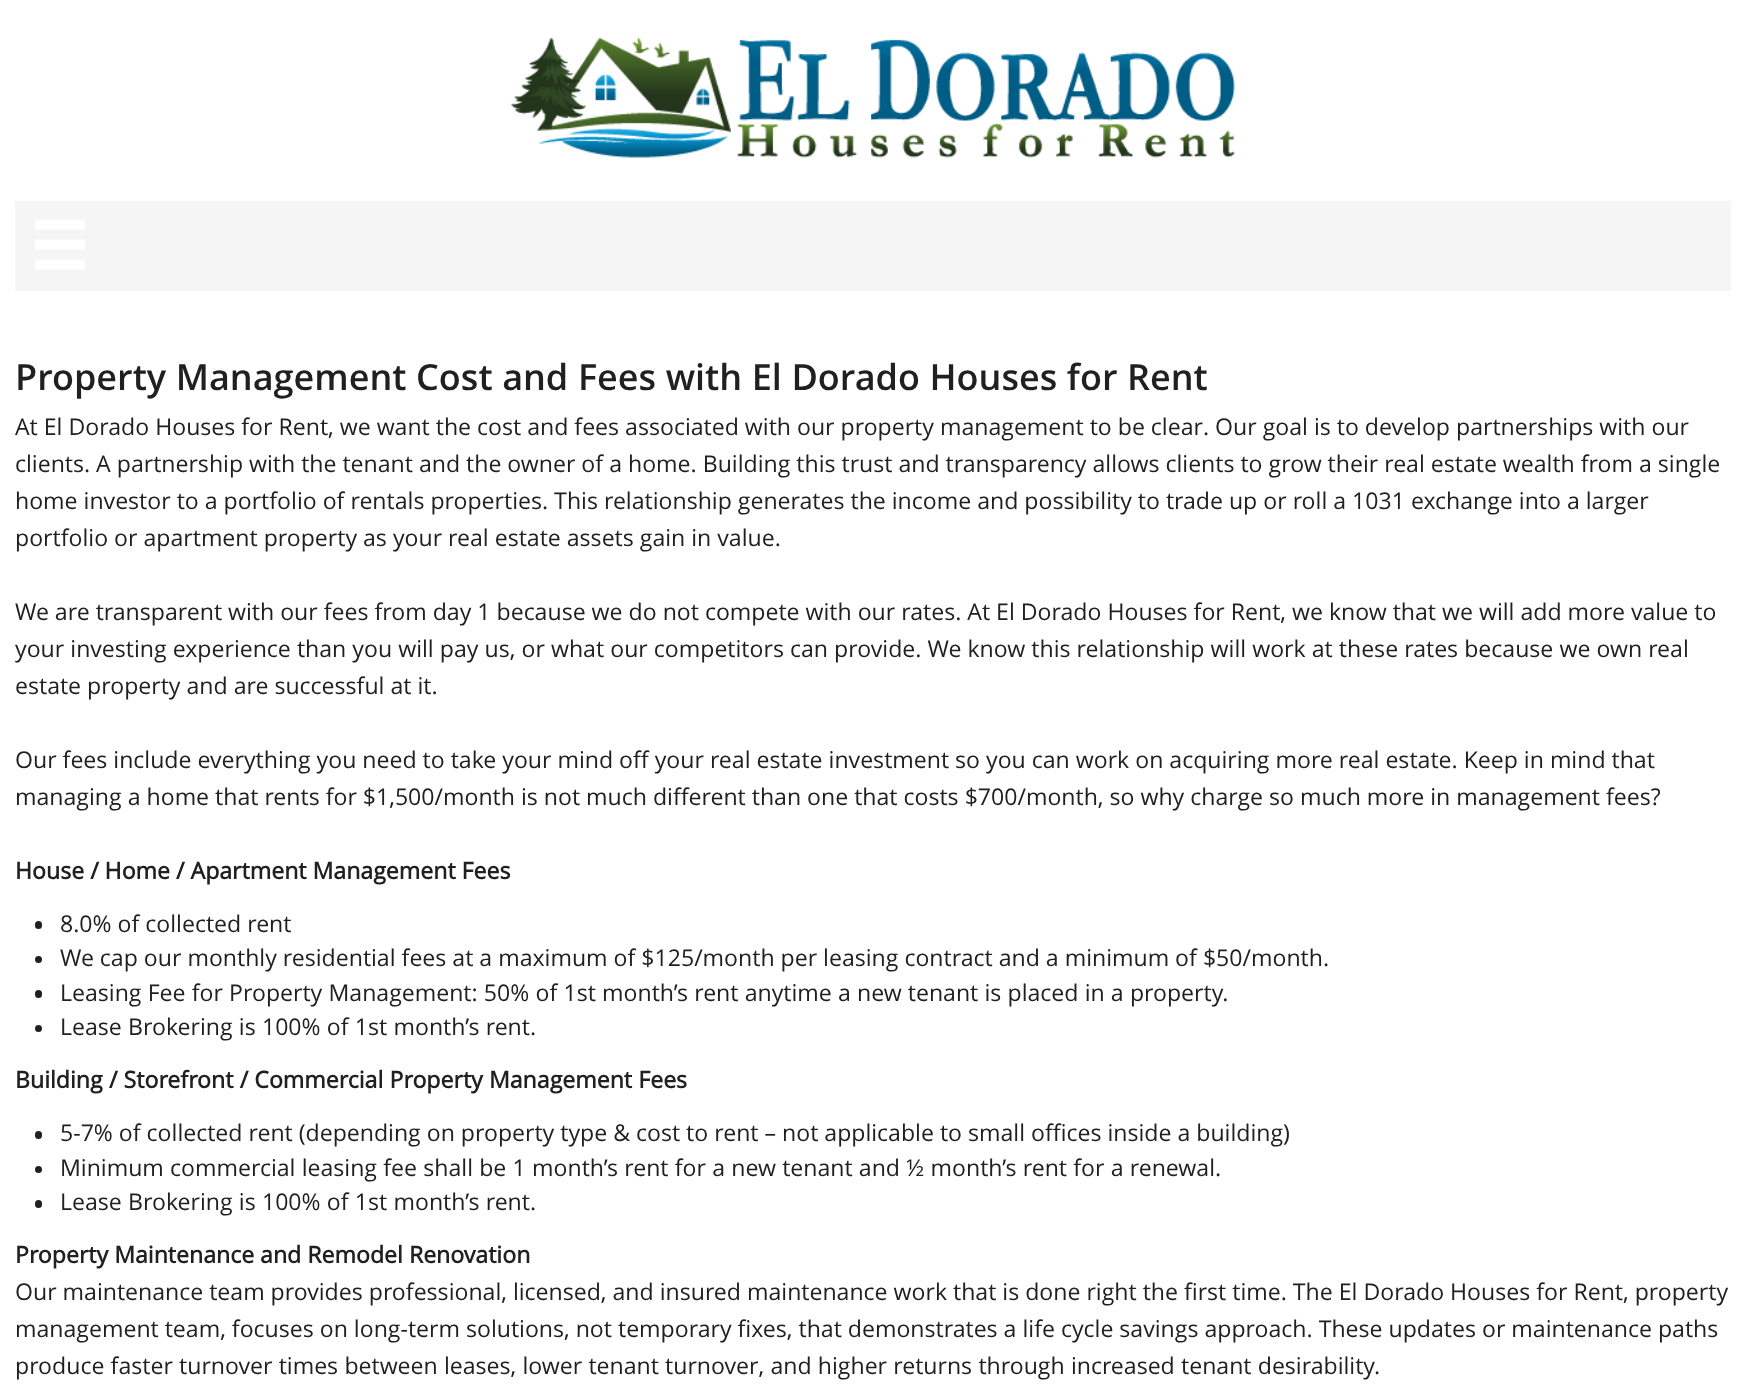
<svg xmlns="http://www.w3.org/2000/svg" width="1746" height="1391">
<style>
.a{font:600 36px Open Sans;fill:#202020}
.b{font:23.1px Open Sans;fill:#202020}
.c{font:bold 23.1px Open Sans;fill:#202020}
</style>
<rect width="100%" height="100%" fill="#fff"/>
<image href="1.png" x="511" y="37" width="724" height="121"/>
<path fill="#f5f5f5" d="M15 201h1716v90H15z"/>
<image href="2.png" x="35" y="219" width="50" height="51"/>
<rect fill="#202020" x="35" y="921" width="7" height="8" rx="3.5"/>
<circle fill="#202020" cx="38.5" cy="959.5" r="3.5"/>
<rect fill="#202020" x="35" y="990" width="7" height="8" rx="3.5"/>
<circle fill="#202020" cx="38.5" cy="1028.5" r="3.5"/>
<rect fill="#202020" x="35" y="1131" width="7" height="8" rx="3.5"/>
<circle fill="#202020" cx="38.5" cy="1169.5" r="3.5"/>
<rect fill="#202020" x="35" y="1200" width="7" height="8" rx="3.5"/>
<text class="a" x="15" y="390" word-spacing="0.25">Property Management Cost and Fees with El Dorado Houses for Rent</text>
<text class="b" x="15" y="435">At El Dorado Houses for Rent, we want the cost and fees associated with our property management to be clear. Our goal is to develop partnerships with our</text>
<text class="b" x="15" y="472">clients. A partnership with the tenant and the owner of a home. Building this trust and transparency allows clients to grow their real estate wealth from a single</text>
<text class="b" x="15" y="509">home investor to a portfolio of rentals properties. This relationship generates the income and possibility to trade up or roll a 1031 exchange into a larger</text>
<text class="b" x="15" y="546">portfolio or apartment property as your real estate assets gain in value.</text>
<text class="b" x="15" y="620">We are transparent with our fees from day 1 because we do not compete with our rates. At El Dorado Houses for Rent, we know that we will add more value to</text>
<text class="b" x="15" y="657" word-spacing="0.1">your investing experience than you will pay us, or what our competitors can provide. We know this relationship will work at these rates because we own real</text>
<text class="b" x="15" y="694">estate property and are successful at it.</text>
<text class="b" x="15" y="768">Our fees include everything you need to take your mind off your real estate investment so you can work on acquiring more real estate. Keep in mind that</text>
<text class="b" x="15" y="805">managing a home that rents for $1,500/month is not much different than one that costs $700/month, so why charge so much more in management fees?</text>
<text class="c" x="15" y="879">House / Home / Apartment Management Fees</text>
<text class="b" x="60" y="932">8.0% of collected rent</text>
<text class="b" x="60" y="966">We cap our monthly residential fees at a maximum of $125/month per leasing contract and a minimum of $50/month.</text>
<text class="b" x="60" y="1001" word-spacing="0.2">Leasing Fee for Property Management: 50% of 1st month’s rent anytime a new tenant is placed in a property.</text>
<text class="b" x="60" y="1035" word-spacing="0.25">Lease Brokering is 100% of 1st month’s rent.</text>
<text class="c" x="15" y="1088" word-spacing="0.25">Building / Storefront / Commercial Property Management Fees</text>
<text class="b" x="60" y="1141">5-7% of collected rent (depending on property type &amp; cost to rent – not applicable to small offices inside a building)</text>
<text class="b" x="60" y="1176" word-spacing="0.25">Minimum commercial leasing fee shall be 1 month’s rent for a new tenant and ½ month’s rent for a renewal.</text>
<text class="b" x="60" y="1210" word-spacing="0.25">Lease Brokering is 100% of 1st month’s rent.</text>
<text class="c" x="15" y="1263">Property Maintenance and Remodel Renovation</text>
<text class="b" x="15" y="1300">Our maintenance team provides professional, licensed, and insured maintenance work that is done right the first time. The El Dorado Houses for Rent, property</text>
<text class="b" x="15" y="1337">management team, focuses on long-term solutions, not temporary fixes, that demonstrates a life cycle savings approach. These updates or maintenance paths</text>
<text class="b" x="15" y="1374" word-spacing="0.25">produce faster turnover times between leases, lower tenant turnover, and higher returns through increased tenant desirability.</text>
</svg>
